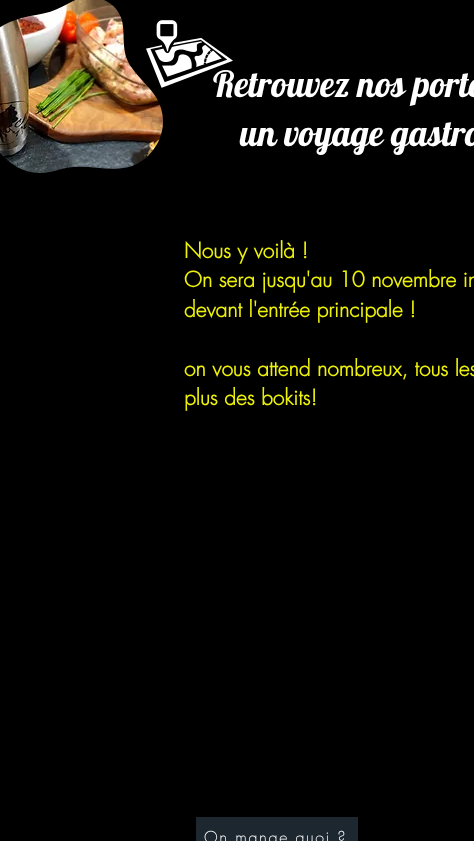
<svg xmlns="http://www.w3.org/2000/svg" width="474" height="841">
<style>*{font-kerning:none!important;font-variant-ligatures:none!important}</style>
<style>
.a{font:36px Lobster;fill:#fff}
.b{font:bold 21px futura;fill:#eef20a}
.c{font:300 16px futura;letter-spacing:1.6px;fill:#fff}
</style>
<rect width="100%" height="100%" fill="#000"/>
<image href="1.png" x="0" y="0" width="163" height="173"/>
<image href="2.png" x="146" y="20" width="87" height="68"/>
<path fill="#1d272f" d="M196 817h162v24H196z"/>
<text class="a" x="213" y="97">Retrouvez nos porte</text>
<text class="a" x="240" y="146">un voyage gastro</text>
<text class="b" x="184" y="258">Nous y voilà !</text>
<text class="b" x="184" y="287">On sera jusqu'au 10 novembre in</text>
<text class="b" x="184" y="317">devant l'entrée principale !</text>
<text class="b" x="184" y="376">on vous attend nombreux, tous les</text>
<text class="b" x="184" y="405">plus des bokits!</text>
<text class="c" x="204" y="843">On mange quoi ?</text>
</svg>
